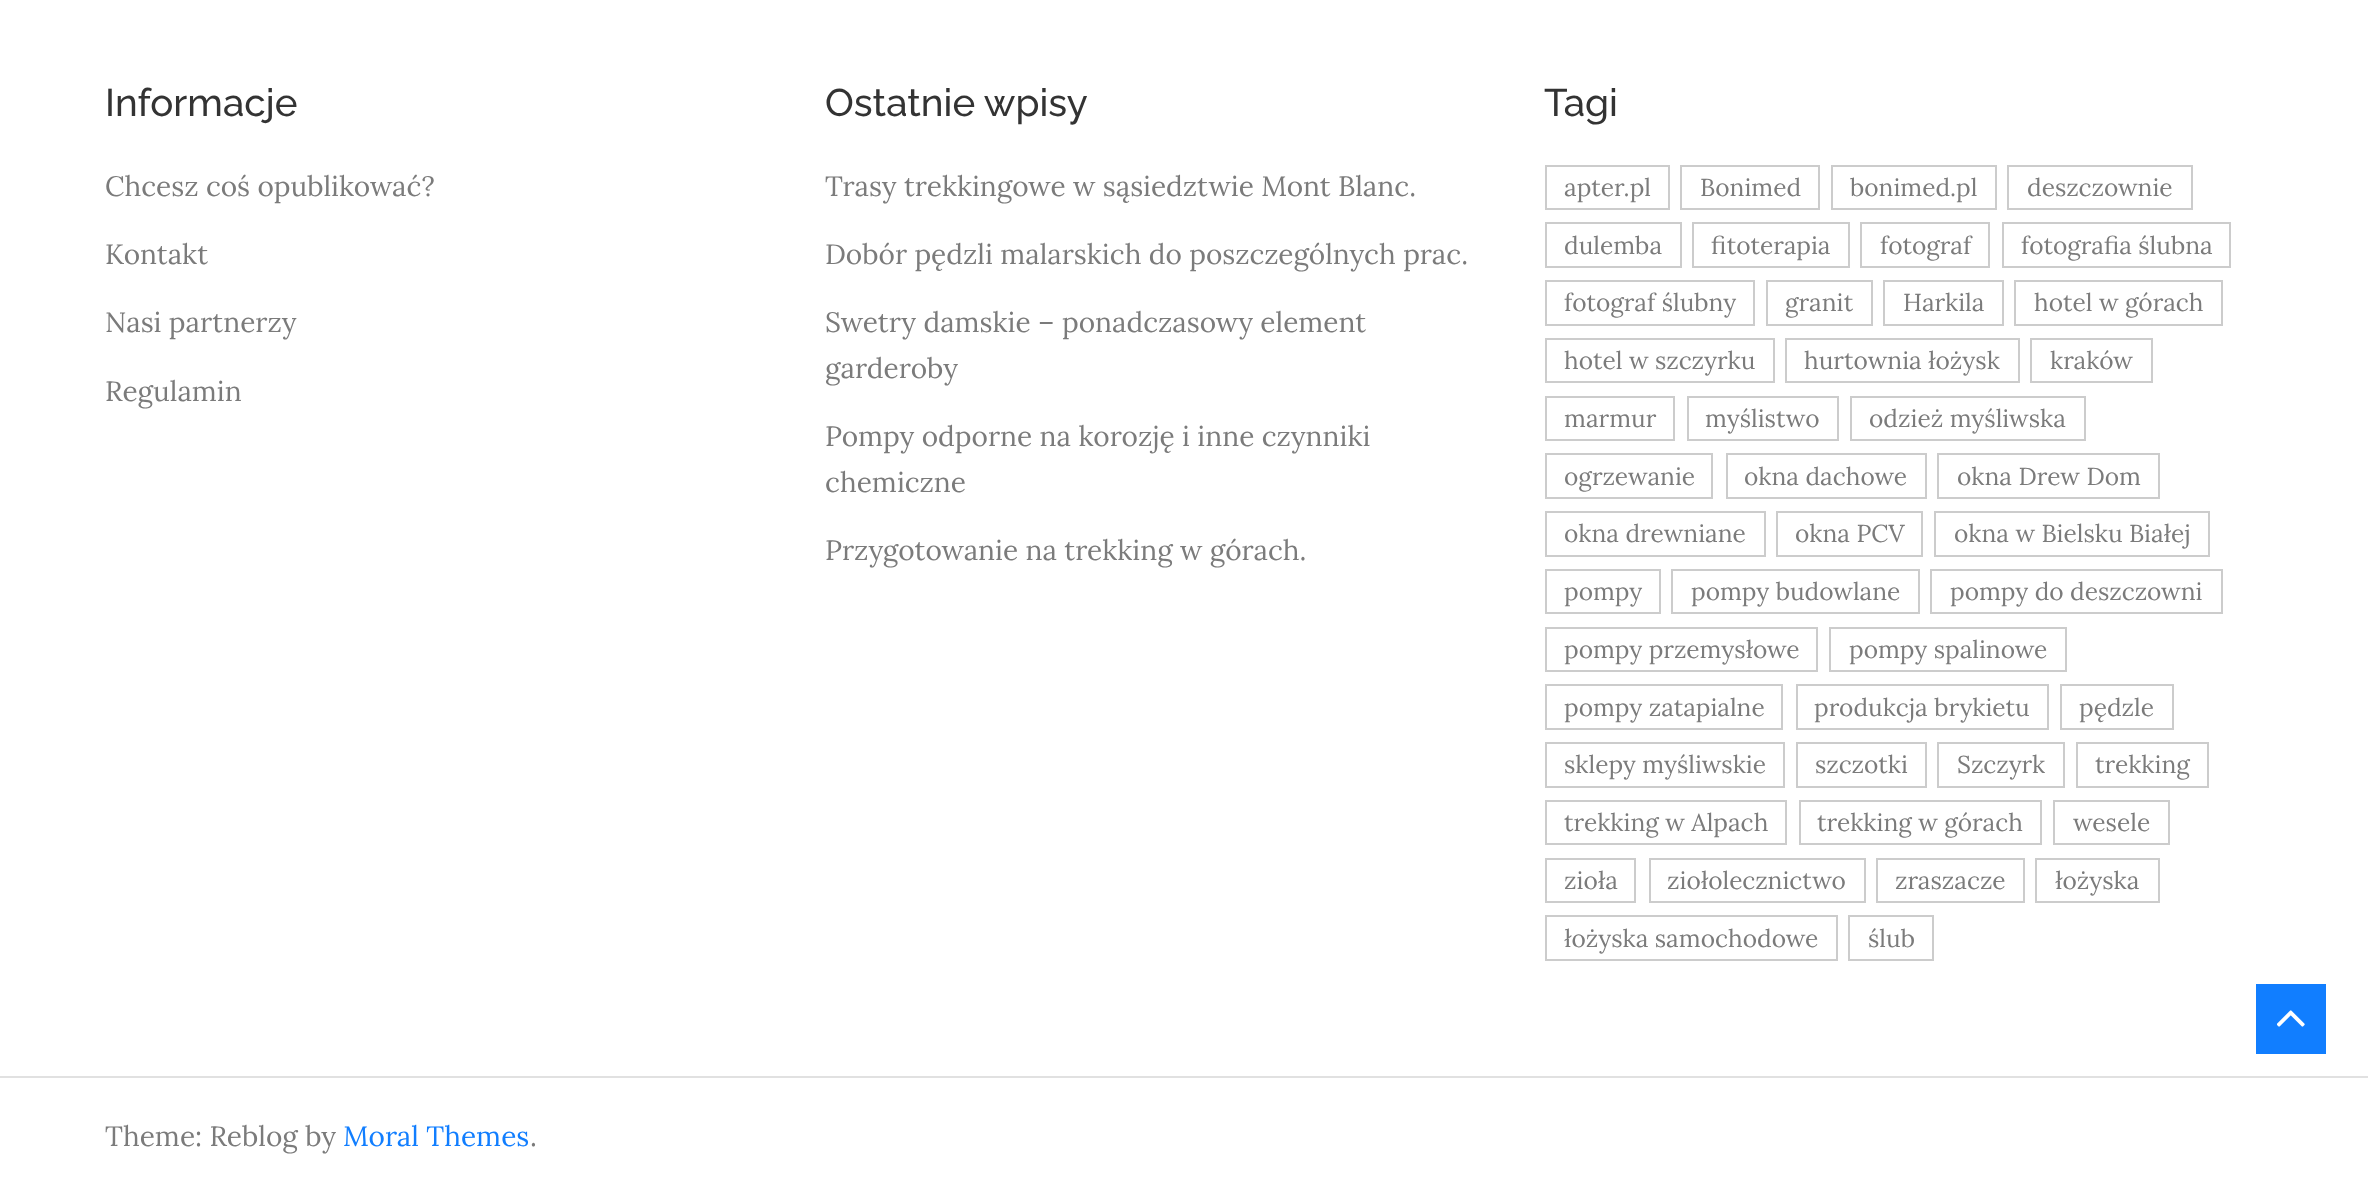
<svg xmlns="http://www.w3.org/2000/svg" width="2368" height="1193">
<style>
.a{font:500 38.5px Raleway;fill:#333}
.b{font:28px Lora;fill:#7b7b7b}
.c{font:24.5px Lora;fill:#7b7b7b}
.d{font:28px Lora;fill:#117eff}
</style>
<rect width="100%" height="100%" fill="#fff"/>
<path fill="none" stroke="#ccc" stroke-width="2" d="M1546 166h123v43H1546z"/>
<path fill="none" stroke="#ccc" stroke-width="2" d="M1681 166h138v43H1681z"/>
<path fill="none" stroke="#ccc" stroke-width="2" d="M1832 166h164v43H1832z"/>
<path fill="none" stroke="#ccc" stroke-width="2" d="M2008 166h184v43H2008z"/>
<path fill="none" stroke="#ccc" stroke-width="2" d="M1546 223h135v44H1546z"/>
<path fill="none" stroke="#ccc" stroke-width="2" d="M1693 223h156v44H1693z"/>
<path fill="none" stroke="#ccc" stroke-width="2" d="M1861 223h128v44H1861z"/>
<path fill="none" stroke="#ccc" stroke-width="2" d="M2003 223h227v44H2003z"/>
<path fill="none" stroke="#ccc" stroke-width="2" d="M1546 281h208v44H1546z"/>
<path fill="none" stroke="#ccc" stroke-width="2" d="M1767 281h105v44H1767z"/>
<path fill="none" stroke="#ccc" stroke-width="2" d="M1884 281h119v44H1884z"/>
<path fill="none" stroke="#ccc" stroke-width="2" d="M2015 281h207v44H2015z"/>
<path fill="none" stroke="#ccc" stroke-width="2" d="M1546 339h228v43H1546z"/>
<path fill="none" stroke="#ccc" stroke-width="2" d="M1786 339h233v43H1786z"/>
<path fill="none" stroke="#ccc" stroke-width="2" d="M2031 339h121v43H2031z"/>
<path fill="none" stroke="#ccc" stroke-width="2" d="M1546 397h128v43H1546z"/>
<path fill="none" stroke="#ccc" stroke-width="2" d="M1688 397h150v43H1688z"/>
<path fill="none" stroke="#ccc" stroke-width="2" d="M1851 397h234v43H1851z"/>
<path fill="none" stroke="#ccc" stroke-width="2" d="M1546 454h166v44H1546z"/>
<path fill="none" stroke="#ccc" stroke-width="2" d="M1727 454h199v44H1727z"/>
<path fill="none" stroke="#ccc" stroke-width="2" d="M1938 454h221v44H1938z"/>
<path fill="none" stroke="#ccc" stroke-width="2" d="M1546 512h219v44H1546z"/>
<path fill="none" stroke="#ccc" stroke-width="2" d="M1777 512h145v44H1777z"/>
<path fill="none" stroke="#ccc" stroke-width="2" d="M1935 512h274v44H1935z"/>
<path fill="none" stroke="#ccc" stroke-width="2" d="M1546 570h114v43H1546z"/>
<path fill="none" stroke="#ccc" stroke-width="2" d="M1672 570h247v43H1672z"/>
<path fill="none" stroke="#ccc" stroke-width="2" d="M1931 570h291v43H1931z"/>
<path fill="none" stroke="#ccc" stroke-width="2" d="M1546 628h271v43H1546z"/>
<path fill="none" stroke="#ccc" stroke-width="2" d="M1830 628h236v43H1830z"/>
<path fill="none" stroke="#ccc" stroke-width="2" d="M1546 685h236v44H1546z"/>
<path fill="none" stroke="#ccc" stroke-width="2" d="M1797 685h251v44H1797z"/>
<path fill="none" stroke="#ccc" stroke-width="2" d="M2061 685h112v44H2061z"/>
<path fill="none" stroke="#ccc" stroke-width="2" d="M1546 743h238v44H1546z"/>
<path fill="none" stroke="#ccc" stroke-width="2" d="M1797 743h129v44H1797z"/>
<path fill="none" stroke="#ccc" stroke-width="2" d="M1938 743h126v44H1938z"/>
<path fill="none" stroke="#ccc" stroke-width="2" d="M2077 743h131v44H2077z"/>
<path fill="none" stroke="#ccc" stroke-width="2" d="M1546 801h240v43H1546z"/>
<path fill="none" stroke="#ccc" stroke-width="2" d="M1800 801h241v43H1800z"/>
<path fill="none" stroke="#ccc" stroke-width="2" d="M2054 801h115v43H2054z"/>
<path fill="none" stroke="#ccc" stroke-width="2" d="M1546 859h89v43H1546z"/>
<path fill="none" stroke="#ccc" stroke-width="2" d="M1650 859h215v43H1650z"/>
<path fill="none" stroke="#ccc" stroke-width="2" d="M1877 859h147v43H1877z"/>
<path fill="none" stroke="#ccc" stroke-width="2" d="M2036 859h123v43H2036z"/>
<path fill="none" stroke="#ccc" stroke-width="2" d="M1546 916h291v44H1546z"/>
<path fill="none" stroke="#ccc" stroke-width="2" d="M1849 916h84v44H1849z"/>
<path fill="#e1e1e1" d="M0 1076h2368v2H0z"/>
<path fill="#117eff" d="M2256 984h70v70H2256z"/>
<image href="1.png" x="2277" y="1010" width="28" height="17"/>
<text class="a" x="105" y="116">Informacje</text>
<text class="b" x="105" y="196">Chcesz coś opublikować?</text>
<text class="b" x="105" y="264">Kontakt</text>
<text class="b" x="105" y="332">Nasi partnerzy</text>
<text class="b" x="105" y="401">Regulamin</text>
<text class="a" x="825" y="116">Ostatnie wpisy</text>
<text class="b" x="825" y="196">Trasy trekkingowe w sąsiedztwie Mont Blanc.</text>
<text class="b" x="825" y="264">Dobór pędzli malarskich do poszczególnych prac.</text>
<text class="b" x="825" y="332">Swetry damskie – ponadczasowy element</text>
<text class="b" x="825" y="378">garderoby</text>
<text class="b" x="825" y="446">Pompy odporne na korozję i inne czynniki</text>
<text class="b" x="825" y="492">chemiczne</text>
<text class="b" x="825" y="560">Przygotowanie na trekking w górach.</text>
<text class="a" x="1544" y="116">Tagi</text>
<text class="c" x="1564" y="196">apter.pl</text>
<text class="c" x="1700" y="196">Bonimed</text>
<text class="c" x="1850" y="196">bonimed.pl</text>
<text class="c" x="2027" y="196">deszczownie</text>
<text class="c" x="1564" y="254">dulemba</text>
<text class="c" x="1711" y="254">fitoterapia</text>
<text class="c" x="1880" y="254">fotograf</text>
<text class="c" x="2021" y="254">fotografia ślubna</text>
<text class="c" x="1564" y="311">fotograf ślubny</text>
<text class="c" x="1785" y="311">granit</text>
<text class="c" x="1903" y="311">Harkila</text>
<text class="c" x="2034" y="311">hotel w górach</text>
<text class="c" x="1564" y="369">hotel w szczyrku</text>
<text class="c" x="1804" y="369">hurtownia łożysk</text>
<text class="c" x="2050" y="369">kraków</text>
<text class="c" x="1564" y="427">marmur</text>
<text class="c" x="1705" y="427">myślistwo</text>
<text class="c" x="1869" y="427">odzież myśliwska</text>
<text class="c" x="1564" y="485">ogrzewanie</text>
<text class="c" x="1744" y="485">okna dachowe</text>
<text class="c" x="1957" y="485">okna Drew Dom</text>
<text class="c" x="1564" y="542">okna drewniane</text>
<text class="c" x="1795" y="542">okna PCV</text>
<text class="c" x="1954" y="542">okna w Bielsku Białej</text>
<text class="c" x="1564" y="600">pompy</text>
<text class="c" x="1691" y="600">pompy budowlane</text>
<text class="c" x="1950" y="600">pompy do deszczowni</text>
<text class="c" x="1564" y="658">pompy przemysłowe</text>
<text class="c" x="1849" y="658">pompy spalinowe</text>
<text class="c" x="1564" y="716">pompy zatapialne</text>
<text class="c" x="1814" y="716">produkcja brykietu</text>
<text class="c" x="2079" y="716">pędzle</text>
<text class="c" x="1564" y="773">sklepy myśliwskie</text>
<text class="c" x="1815" y="773">szczotki</text>
<text class="c" x="1957" y="773">Szczyrk</text>
<text class="c" x="2095" y="773">trekking</text>
<text class="c" x="1564" y="831">trekking w Alpach</text>
<text class="c" x="1817" y="831">trekking w górach</text>
<text class="c" x="2073" y="831">wesele</text>
<text class="c" x="1564" y="889">zioła</text>
<text class="c" x="1667" y="889">ziołolecznictwo</text>
<text class="c" x="1895" y="889">zraszacze</text>
<text class="c" x="2055" y="889">łożyska</text>
<text class="c" x="1564" y="947">łożyska samochodowe</text>
<text class="c" x="1868" y="947">ślub</text>
<text class="b" x="105" y="1146">Theme: Reblog by</text>
<text class="d" x="343" y="1146">Moral Themes</text>
<text class="b" x="530" y="1146">.</text>
</svg>
